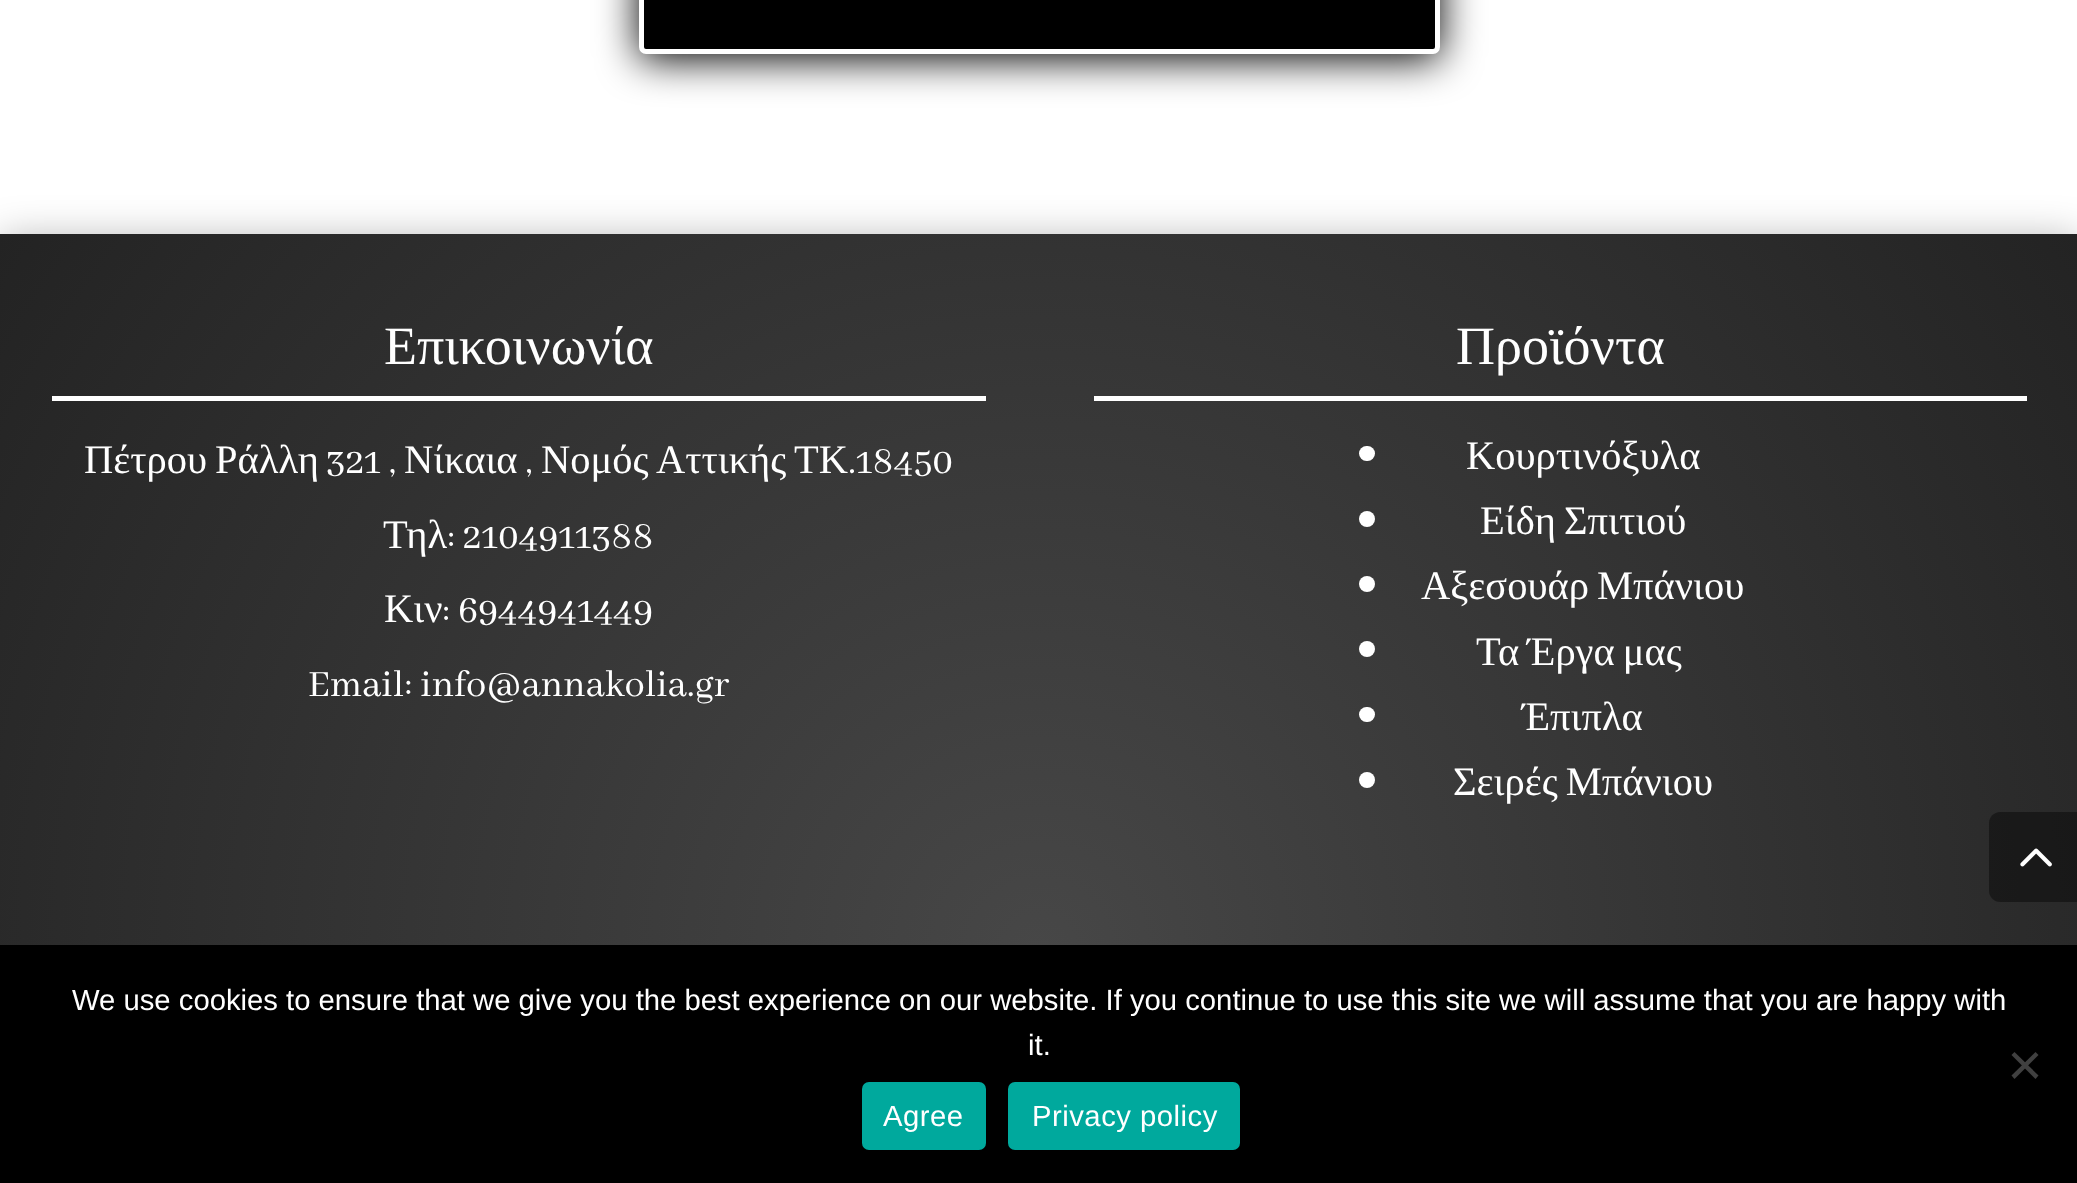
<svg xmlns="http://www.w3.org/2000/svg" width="2077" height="1183">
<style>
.a{font:54px Liberation Serif;fill:#fff}
.b{font:40.5px Liberation Serif;fill:#fff}
.c{font:40.5px Abhaya Libre;fill:#fff}
.d{font:29.25px Liberation Sans;fill:#fff}
.e{font:29.25px Liberation Sans;letter-spacing:0.5px;fill:#fff}
</style>
<defs>
<radialGradient id="g1" gradientUnits="userSpaceOnUse" cx="1040" cy="951" r="1263"><stop offset="0" stop-color="#474747"/><stop offset="1" stop-color="#232323"/></radialGradient>
</defs>
<rect width="100%" height="100%" fill="#fff"/>
<rect fill="#000" filter="blur(20px)" x="639" y="-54" width="801" height="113" rx="7"/>
<rect fill="#000" stroke="#fff" stroke-width="5" x="641.5" y="-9.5" width="796" height="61" rx="4.5"/>
<path fill="#0000004d" filter="blur(20px)" d="M0 239h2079v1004H0z"/>
<path fill="url(#g1)" d="M0 234h2077v711H0z"/>
<path fill="#fff" d="M52 396h934v5H52z"/>
<path fill="#fff" d="M1094 396h933v5H1094z"/>
<rect fill="#fff" x="1359" y="446" width="16" height="15" rx="7.5"/>
<circle fill="#fff" cx="1367" cy="519" r="8"/>
<circle fill="#fff" cx="1367" cy="584" r="8"/>
<circle fill="#fff" cx="1367" cy="649" r="8"/>
<rect fill="#fff" x="1359" y="707" width="16" height="15" rx="7.5"/>
<circle fill="#fff" cx="1367" cy="780" r="8"/>
<path fill="#00000066" d="M2000 812h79v90h-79c-6 0-11-5-11-11v-68c0-6 5-11 11-11z"/>
<image href="1.png" x="2020" y="848" width="32" height="19"/>
<path fill="#000" d="M0 945h2077v238H0z"/>
<path fill="#404040" d="M2035.5 1052l3 3l-24 24l-3-3.5z"/>
<path fill="#404040" d="M2011.5 1055l3-3l24 23.5l-3 3.5z"/>
<rect fill="#00a99d" x="862" y="1082" width="124" height="68" rx="7"/>
<rect fill="#00a99d" x="1008" y="1082" width="232" height="68" rx="7"/>
<text class="a" x="384" y="364">Επικοινωνία</text>
<text class="b" x="84" y="473">Πέτρου</text>
<text class="b" x="215" y="473">Ράλλη</text>
<text class="c" x="326" y="473">321 ,</text>
<text class="b" x="404" y="473">Νίκαια</text>
<text class="c" x="525" y="473">,</text>
<text class="b" x="541" y="473">Νομός</text>
<text class="b" x="656" y="473">Αττικής</text>
<text class="b" x="794" y="473">ΤΚ</text>
<text class="c" x="848" y="473">.18450</text>
<text class="b" x="383" y="548">Τηλ</text>
<text class="c" x="447" y="548">: 2104911388</text>
<text class="b" x="384" y="622">Κιν</text>
<text class="c" x="442" y="622">: 6944941449</text>
<text class="c" x="308" y="696">Email: info@annakolia.gr</text>
<text class="a" x="1456" y="364">Προϊόντα</text>
<text class="b" x="1466" y="469">Κουρτινόξυλα</text>
<text class="b" x="1480" y="534" word-spacing="-2">Είδη Σπιτιού</text>
<text class="b" x="1421" y="599" word-spacing="-2">Αξεσουάρ Μπάνιου</text>
<text class="b" x="1476" y="665" word-spacing="-2">Τα Έργα μας</text>
<text class="b" x="1522" y="730">Έπιπλα</text>
<text class="b" x="1453" y="795" word-spacing="-2">Σειρές Μπάνιου</text>
<text class="d" x="72" y="1010">We use cookies to ensure that we give you the best experience on our website. If you continue to use this site we will assume that you are happy with</text>
<text class="d" x="1028" y="1055">it.</text>
<text class="e" x="883" y="1126">Agree</text>
<text class="e" x="1032" y="1126">Privacy policy</text>
</svg>
